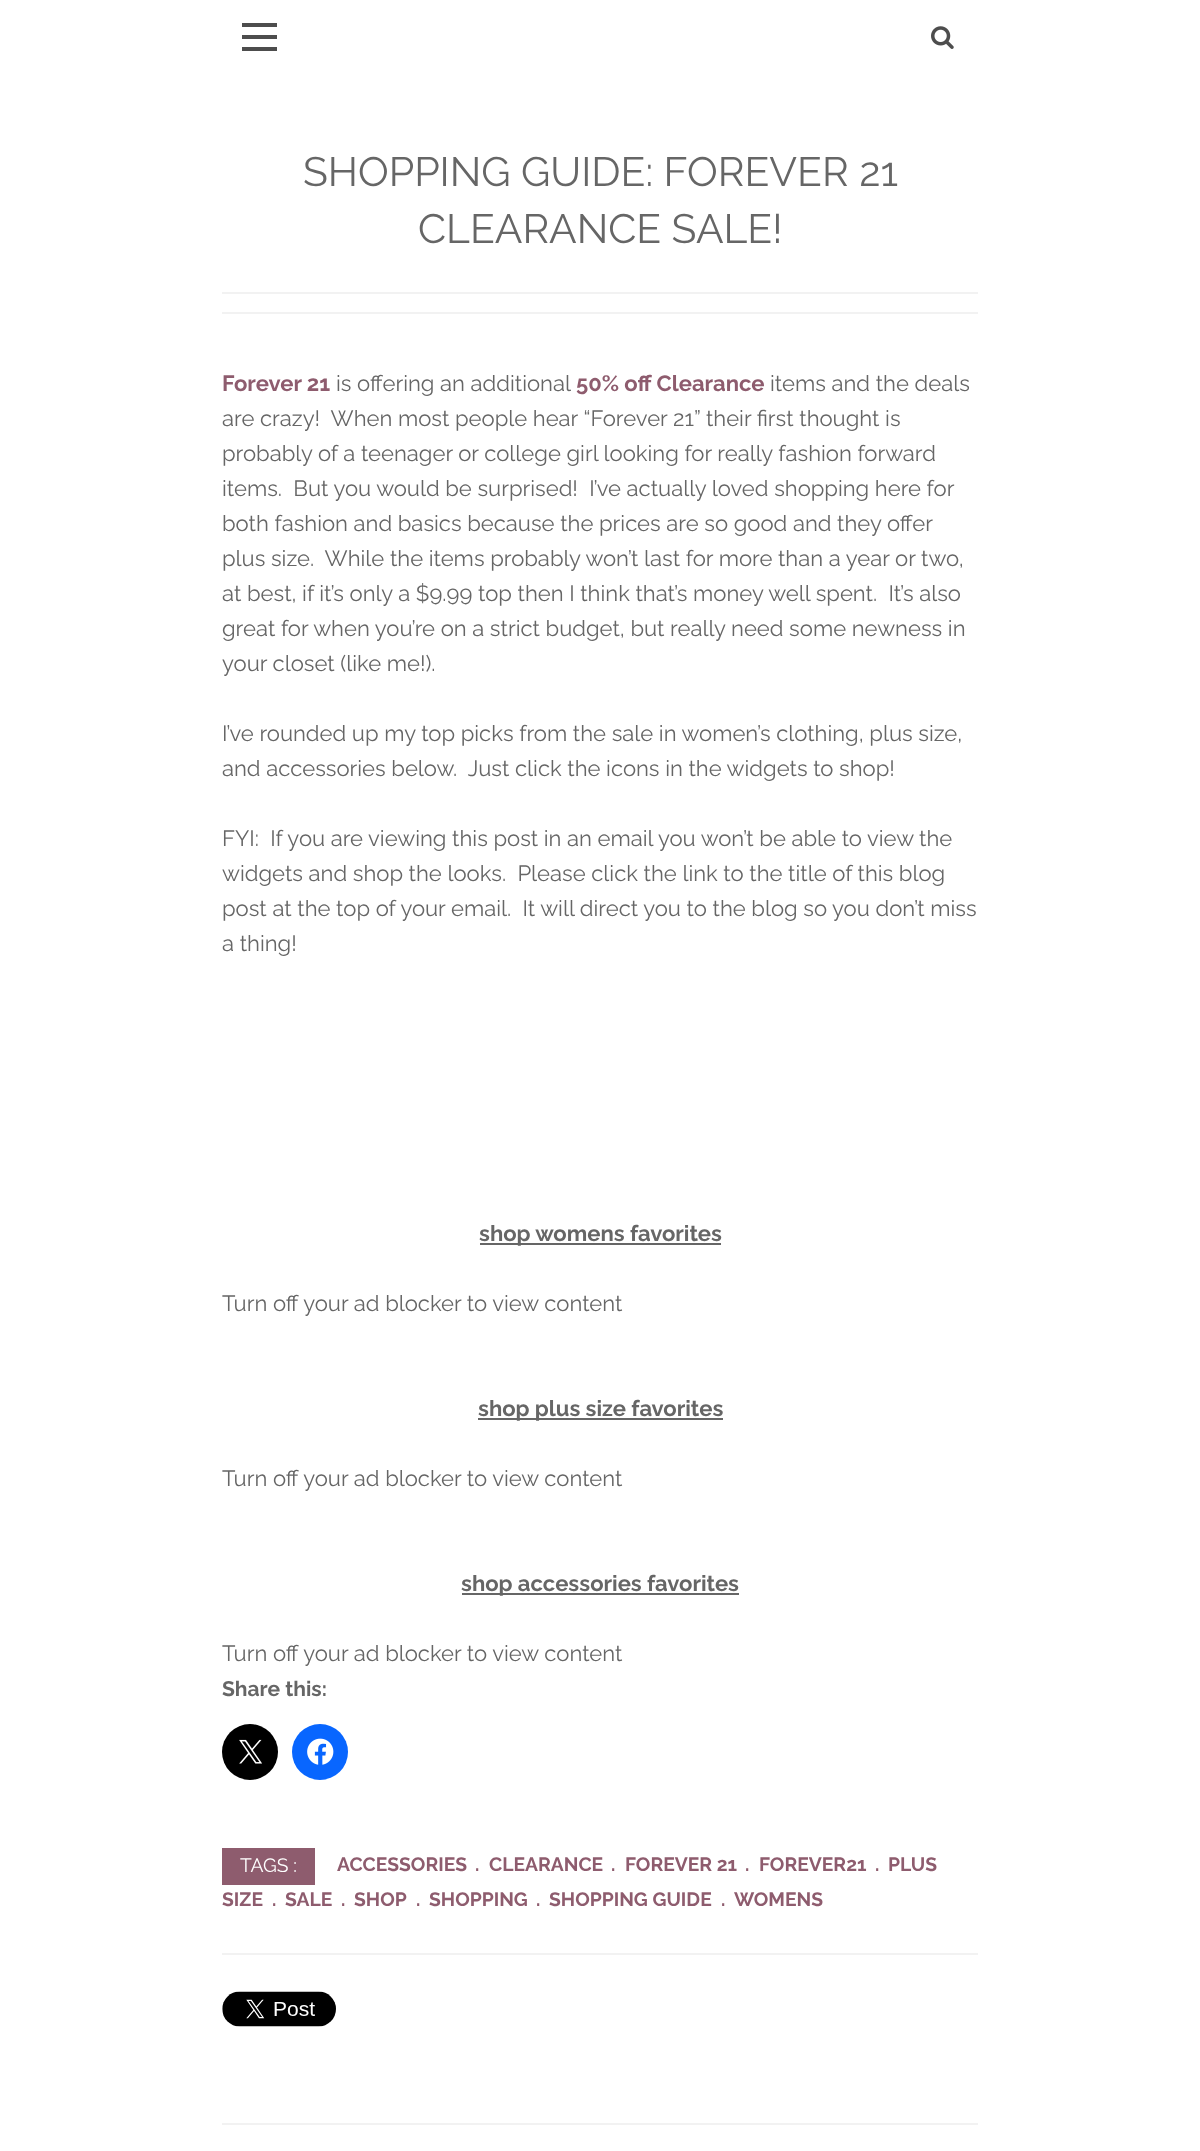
<svg xmlns="http://www.w3.org/2000/svg" width="1200" height="2151">
<style>
.a{font:40.9px Raleway;fill:#666}
.b{font:bold 22.05px Raleway;fill:#8e5c6e}
.c{font:22.05px Raleway;fill:#666}
.d{font:bold 22.05px Raleway;fill:#666}
.e{font:bold 21px Raleway;fill:#666}
.f{font:bold 19.25px Raleway;fill:#8e5c6e}
.g{font:19.25px Raleway;fill:#fff}
</style>
<rect width="100%" height="100%" fill="#fff"/>
<path fill="#4d4d4d" d="M242 35h35v4H242z"/>
<path fill="#4d4d4d" d="M242 23h35v4H242z"/>
<path fill="#4d4d4d" d="M242 47h35v4H242z"/>
<image href="1.png" x="931" y="26" width="23" height="23"/>
<path fill="#f2f2f2" d="M222 292h756v2H222z"/>
<path fill="#f2f2f2" d="M222 312h756v2H222z"/>
<path fill="#666" d="M480 1243h241v2H480z"/>
<path fill="#666" d="M478 1418h245v2H478z"/>
<path fill="#666" d="M462 1593h277v2H462z"/>
<circle fill="#000" cx="250" cy="1752" r="28"/>
<image href="2.png" x="239" y="1739" width="23" height="25"/>
<circle fill="#0866ff" cx="320" cy="1752" r="28"/>
<image href="3.png" x="307" y="1738" width="27" height="27"/>
<path fill="#8e5c6e" d="M222 1848h93v37H222z"/>
<path fill="#f2f2f2" d="M222 1953h756v2H222z"/>
<image href="4.png" x="222" y="1991" width="114" height="36"/>
<path fill="#f2f2f2" d="M222 2123h756v2H222z"/>
<text class="a" x="303" y="186">SHOPPING GUIDE: FOREVER 21</text>
<text class="a" x="418" y="243">CLEARANCE SALE!</text>
<text class="b" x="222" y="391">Forever 21</text>
<text class="c" x="336" y="391">is offering an additional</text>
<text class="b" x="576" y="391">50% off Clearance</text>
<text class="c" x="770" y="391">items and the deals</text>
<text class="c" xml:space="preserve" x="222" y="426">are crazy!  When most people hear “Forever 21” their first thought is</text>
<text class="c" x="222" y="461">probably of a teenager or college girl looking for really fashion forward</text>
<text class="c" xml:space="preserve" x="222" y="496">items.  But you would be surprised!  I’ve actually loved shopping here for</text>
<text class="c" x="222" y="531">both fashion and basics because the prices are so good and they offer</text>
<text class="c" xml:space="preserve" x="222" y="566">plus size.  While the items probably won’t last for more than a year or two,</text>
<text class="c" xml:space="preserve" x="222" y="601">at best, if it’s only a $9.99 top then I think that’s money well spent.  It’s also</text>
<text class="c" x="222" y="636">great for when you’re on a strict budget, but really need some newness in</text>
<text class="c" x="222" y="671">your closet (like me!).</text>
<text class="c" x="222" y="741">I’ve rounded up my top picks from the sale in women’s clothing, plus size,</text>
<text class="c" xml:space="preserve" x="222" y="776">and accessories below.  Just click the icons in the widgets to shop!</text>
<text class="c" xml:space="preserve" x="222" y="846">FYI:  If you are viewing this post in an email you won’t be able to view the</text>
<text class="c" xml:space="preserve" x="222" y="881">widgets and shop the looks.  Please click the link to the title of this blog</text>
<text class="c" xml:space="preserve" x="222" y="916">post at the top of your email.  It will direct you to the blog so you don’t miss</text>
<text class="c" x="222" y="951">a thing!</text>
<text class="d" x="479" y="1241">shop womens favorites</text>
<text class="c" x="222" y="1311">Turn off your ad blocker to view content</text>
<text class="d" x="478" y="1416">shop plus size favorites</text>
<text class="c" x="222" y="1486">Turn off your ad blocker to view content</text>
<text class="d" x="461" y="1591">shop accessories favorites</text>
<text class="c" x="222" y="1661">Turn off your ad blocker to view content</text>
<text class="e" x="222" y="1696">Share this:</text>
<text class="f" x="875" y="1871">.</text>
<text class="f" x="888" y="1871">PLUS</text>
<text class="f" x="222" y="1906">SIZE</text>
<text class="g" x="240" y="1872">TAGS :</text>
<text class="f" x="337" y="1871">ACCESSORIES</text>
<text class="f" x="475" y="1871">.</text>
<text class="f" x="489" y="1871">CLEARANCE</text>
<text class="f" x="611" y="1871">.</text>
<text class="f" x="625" y="1871">FOREVER 21</text>
<text class="f" x="745" y="1871">.</text>
<text class="f" x="759" y="1871">FOREVER21</text>
<text class="f" x="272" y="1906">.</text>
<text class="f" x="285" y="1906">SALE</text>
<text class="f" x="341" y="1906">.</text>
<text class="f" x="354" y="1906">SHOP</text>
<text class="f" x="416" y="1906">.</text>
<text class="f" x="429" y="1906">SHOPPING</text>
<text class="f" x="536" y="1906">.</text>
<text class="f" x="549" y="1906">SHOPPING GUIDE</text>
<text class="f" x="721" y="1906">.</text>
<text class="f" x="734" y="1906">WOMENS</text>
</svg>
